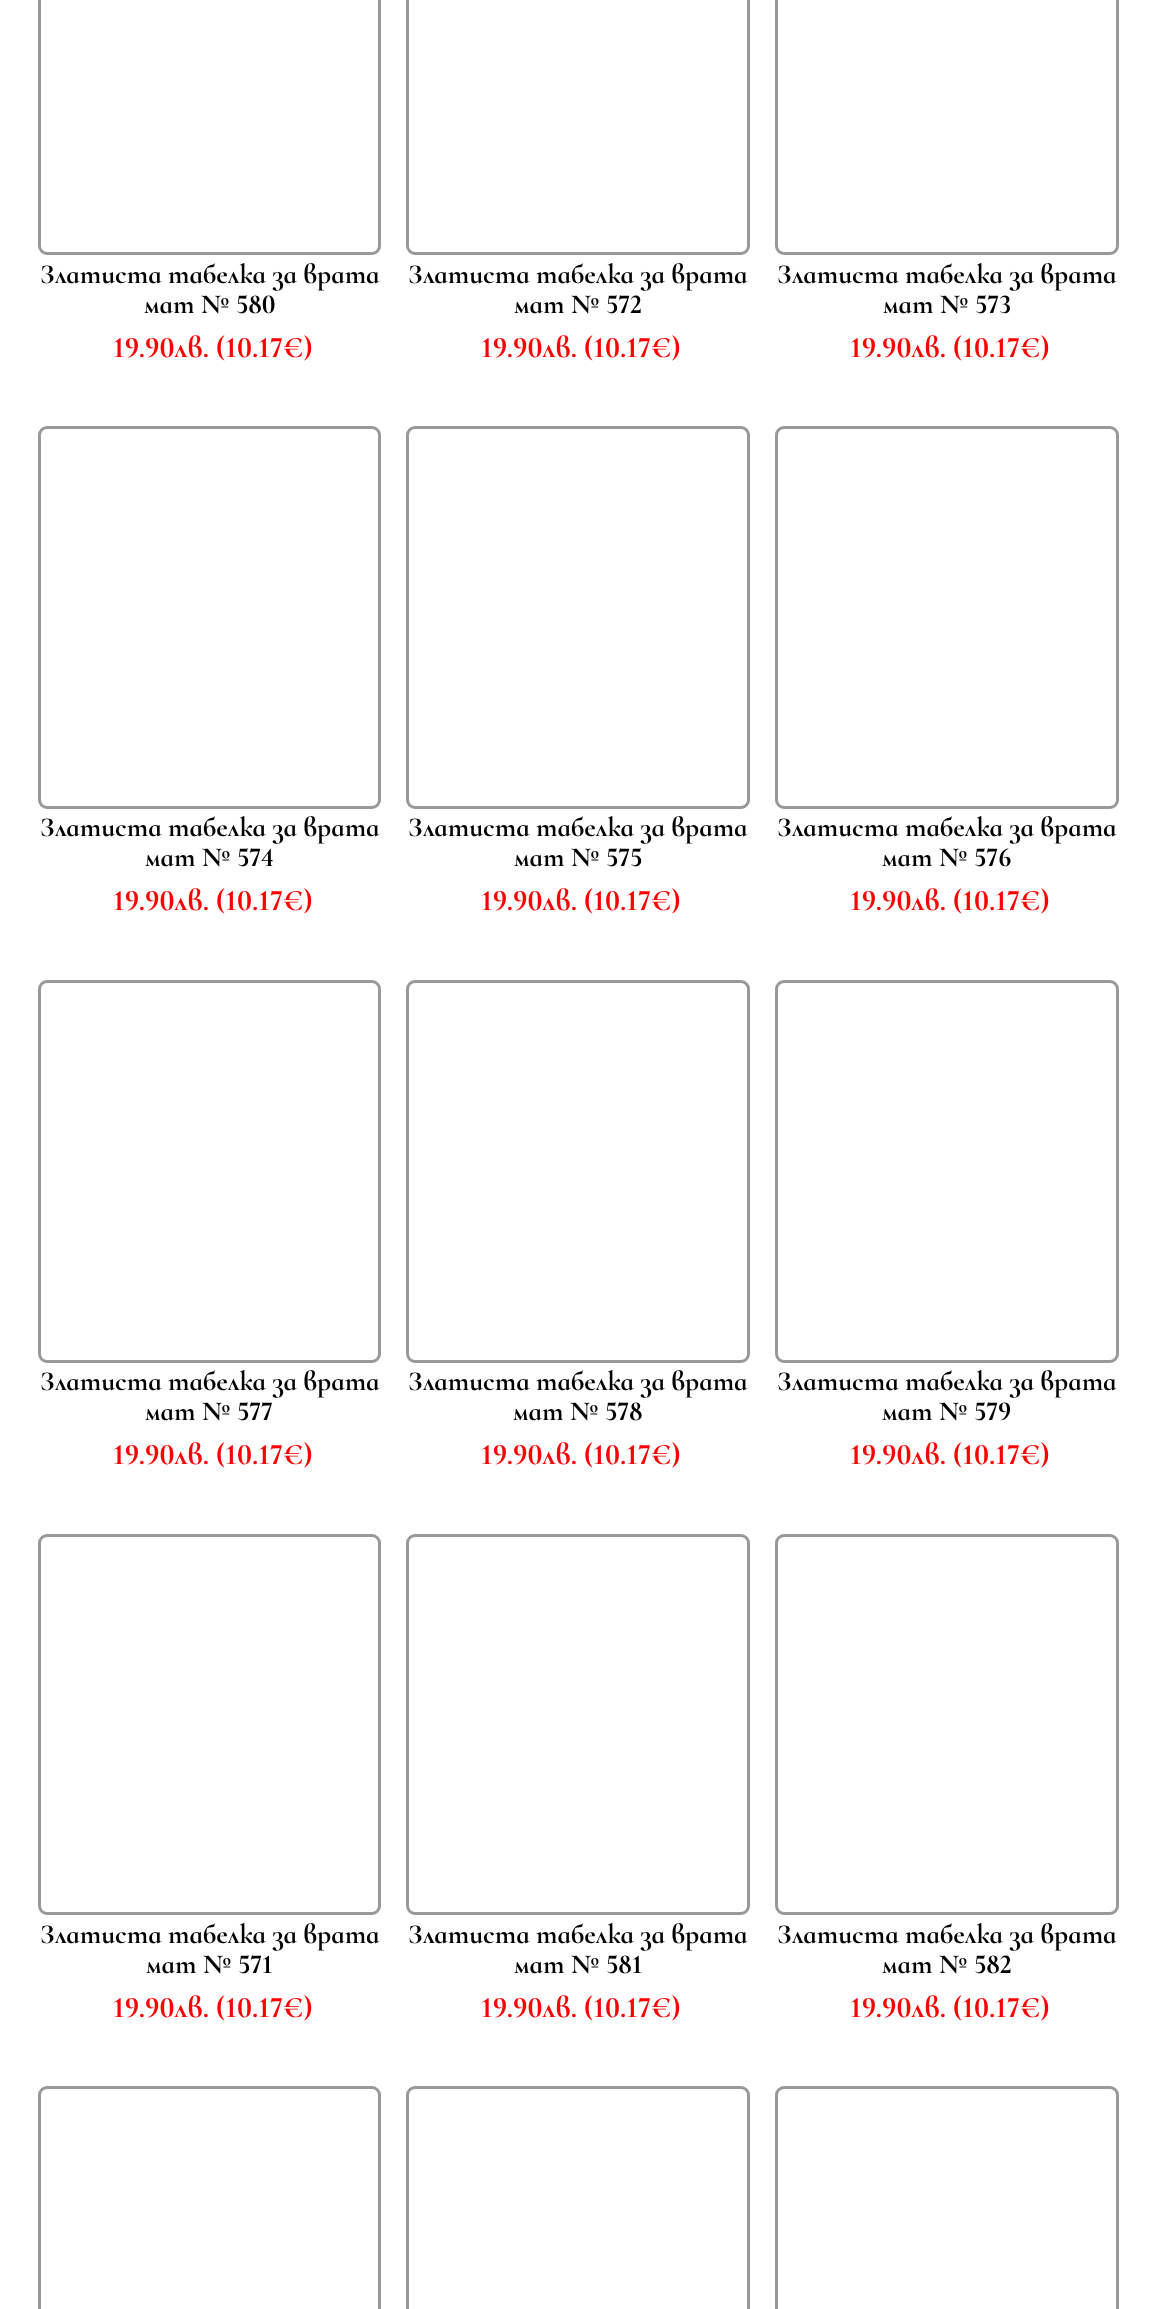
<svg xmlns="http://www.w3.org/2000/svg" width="1156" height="2309">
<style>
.a{font:bold 27.5px Cormorant Infant;fill:#000}
.b{font:bold 30px Cormorant Infant;fill:#f00}
</style>
<rect width="100%" height="100%" fill="#fff"/>
<rect fill="none" stroke="#999" stroke-width="3" x="39.5" y="-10.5" width="340" height="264" rx="7.5"/>
<rect fill="none" stroke="#999" stroke-width="3" x="407.5" y="-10.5" width="341" height="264" rx="7.5"/>
<rect fill="none" stroke="#999" stroke-width="3" x="776.5" y="-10.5" width="341" height="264" rx="7.5"/>
<rect fill="none" stroke="#999" stroke-width="3" x="39.5" y="427.5" width="340" height="380" rx="7.5"/>
<rect fill="none" stroke="#999" stroke-width="3" x="407.5" y="427.5" width="341" height="380" rx="7.5"/>
<rect fill="none" stroke="#999" stroke-width="3" x="776.5" y="427.5" width="341" height="380" rx="7.5"/>
<rect fill="none" stroke="#999" stroke-width="3" x="39.5" y="981.5" width="340" height="380" rx="7.5"/>
<rect fill="none" stroke="#999" stroke-width="3" x="407.5" y="981.5" width="341" height="380" rx="7.5"/>
<rect fill="none" stroke="#999" stroke-width="3" x="776.5" y="981.5" width="341" height="380" rx="7.5"/>
<rect fill="none" stroke="#999" stroke-width="3" x="39.5" y="1535.5" width="340" height="378" rx="7.5"/>
<rect fill="none" stroke="#999" stroke-width="3" x="407.5" y="1535.5" width="341" height="378" rx="7.5"/>
<rect fill="none" stroke="#999" stroke-width="3" x="776.5" y="1535.5" width="341" height="378" rx="7.5"/>
<rect fill="none" stroke="#999" stroke-width="3" x="39.5" y="2087.5" width="340" height="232" rx="7.5"/>
<rect fill="none" stroke="#999" stroke-width="3" x="407.5" y="2087.5" width="341" height="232" rx="7.5"/>
<rect fill="none" stroke="#999" stroke-width="3" x="776.5" y="2087.5" width="341" height="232" rx="7.5"/>
<text class="a" x="40" y="283">Златиста табелка за врата</text>
<text class="a" x="144" y="313">мат № 580</text>
<text class="b" x="113" y="357">19.90лв. (10.17€)</text>
<text class="a" x="408" y="283">Златиста табелка за врата</text>
<text class="a" x="514" y="313">мат № 572</text>
<text class="b" x="481" y="357">19.90лв. (10.17€)</text>
<text class="a" x="777" y="283">Златиста табелка за врата</text>
<text class="a" x="883" y="313">мат № 573</text>
<text class="b" x="850" y="357">19.90лв. (10.17€)</text>
<text class="a" x="40" y="836">Златиста табелка за врата</text>
<text class="a" x="145" y="866">мат № 574</text>
<text class="b" x="113" y="910">19.90лв. (10.17€)</text>
<text class="a" x="408" y="836">Златиста табелка за врата</text>
<text class="a" x="514" y="866">мат № 575</text>
<text class="b" x="481" y="910">19.90лв. (10.17€)</text>
<text class="a" x="777" y="836">Златиста табелка за врата</text>
<text class="a" x="882" y="866">мат № 576</text>
<text class="b" x="850" y="910">19.90лв. (10.17€)</text>
<text class="a" x="40" y="1390">Златиста табелка за врата</text>
<text class="a" x="145" y="1420">мат № 577</text>
<text class="b" x="113" y="1464">19.90лв. (10.17€)</text>
<text class="a" x="408" y="1390">Златиста табелка за врата</text>
<text class="a" x="513" y="1420">мат № 578</text>
<text class="b" x="481" y="1464">19.90лв. (10.17€)</text>
<text class="a" x="777" y="1390">Златиста табелка за врата</text>
<text class="a" x="882" y="1420">мат № 579</text>
<text class="b" x="850" y="1464">19.90лв. (10.17€)</text>
<text class="a" x="40" y="1943">Златиста табелка за врата</text>
<text class="a" x="146" y="1973">мат № 571</text>
<text class="b" x="113" y="2017">19.90лв. (10.17€)</text>
<text class="a" x="408" y="1943">Златиста табелка за врата</text>
<text class="a" x="514" y="1973">мат № 581</text>
<text class="b" x="481" y="2017">19.90лв. (10.17€)</text>
<text class="a" x="777" y="1943">Златиста табелка за врата</text>
<text class="a" x="882" y="1973">мат № 582</text>
<text class="b" x="850" y="2017">19.90лв. (10.17€)</text>
</svg>
